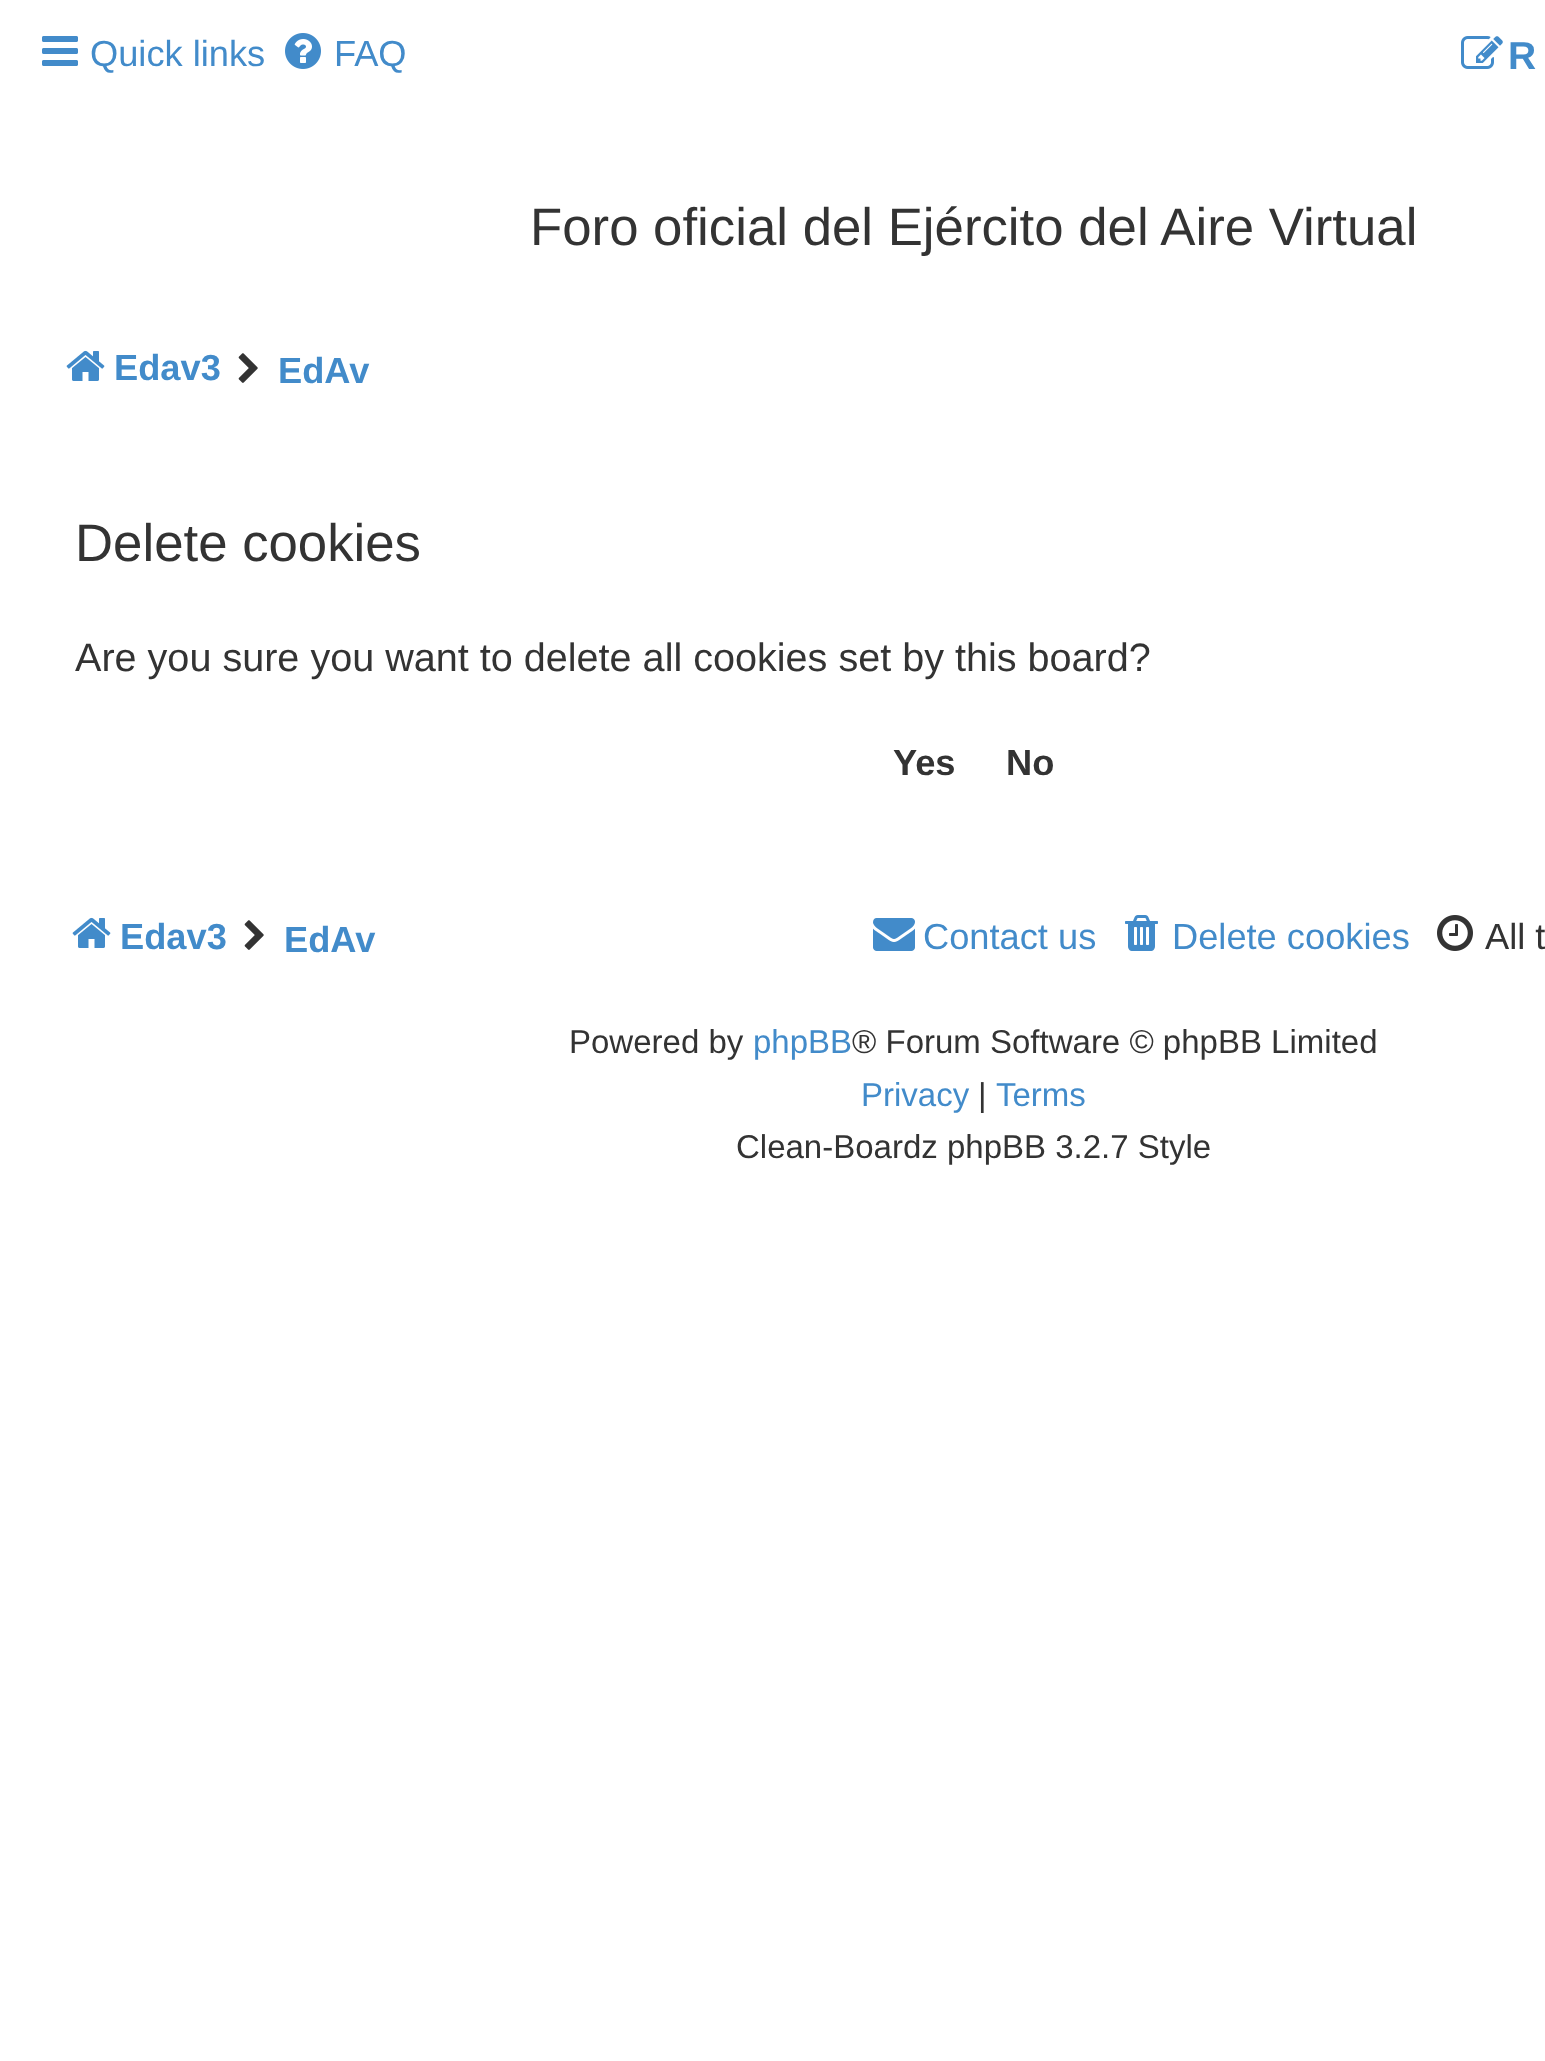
<svg xmlns="http://www.w3.org/2000/svg" width="1545" height="2061">
<style>
.a{font:36.25px Liberation Sans;fill:#428bca}
.b{font:bold 39px Liberation Sans;fill:#428bca}
.c{font:52.75px Liberation Sans;fill:#333}
.d{font:bold 36.25px Liberation Sans;fill:#428bca}
.e{font:39.6px Liberation Sans;fill:#333}
.f{font:bold 36.25px Liberation Sans;fill:#333}
.g{font:36.25px Liberation Sans;fill:#333}
.h{font:33px Liberation Sans;fill:#333}
.i{font:33px Liberation Sans;fill:#428bca}
</style>
<rect width="100%" height="100%" fill="#fff"/>
<image href="1.png" x="42" y="36" width="36" height="30"/>
<image href="2.png" x="285" y="33" width="36" height="36"/>
<image href="3.png" x="1461" y="36" width="42" height="33"/>
<image href="4.png" x="66" y="350" width="39" height="31"/>
<image href="5.png" x="238" y="353" width="20" height="30"/>
<image href="4.png" x="72" y="917" width="39" height="31"/>
<image href="5.png" x="244" y="920" width="20" height="30"/>
<image href="6.png" x="873" y="918" width="42" height="33"/>
<image href="7.png" x="1125" y="915" width="33" height="36"/>
<image href="8.png" x="1437" y="915" width="36" height="36"/>
<text class="a" x="90" y="66">Quick links</text>
<text class="a" x="334" y="66">FAQ</text>
<text class="b" x="1508" y="69">R</text>
<text class="c" x="530" y="245">Foro oficial del Ejército del Aire Virtual</text>
<text class="d" x="114" y="380">Edav3</text>
<text class="d" x="278" y="383">EdAv</text>
<text class="c" x="75" y="561">Delete cookies</text>
<text class="e" x="75" y="671">Are you sure you want to delete all cookies set by this board?</text>
<text class="f" x="893" y="775">Yes</text>
<text class="f" x="1006" y="775">No</text>
<text class="d" x="120" y="949">Edav3</text>
<text class="d" x="284" y="952">EdAv</text>
<text class="a" x="923" y="949">Contact us</text>
<text class="a" x="1172" y="949">Delete cookies</text>
<text class="g" x="1485" y="949">All t</text>
<text class="h" x="569" y="1053">Powered by</text>
<text class="i" x="753" y="1053">phpBB</text>
<text class="h" x="852" y="1053">® Forum Software © phpBB Limited</text>
<text class="i" x="861" y="1106">Privacy</text>
<text class="h" x="978" y="1106">|</text>
<text class="i" x="996" y="1106">Terms</text>
<text class="h" x="736" y="1158">Clean-Boardz phpBB 3.2.7 Style</text>
</svg>
